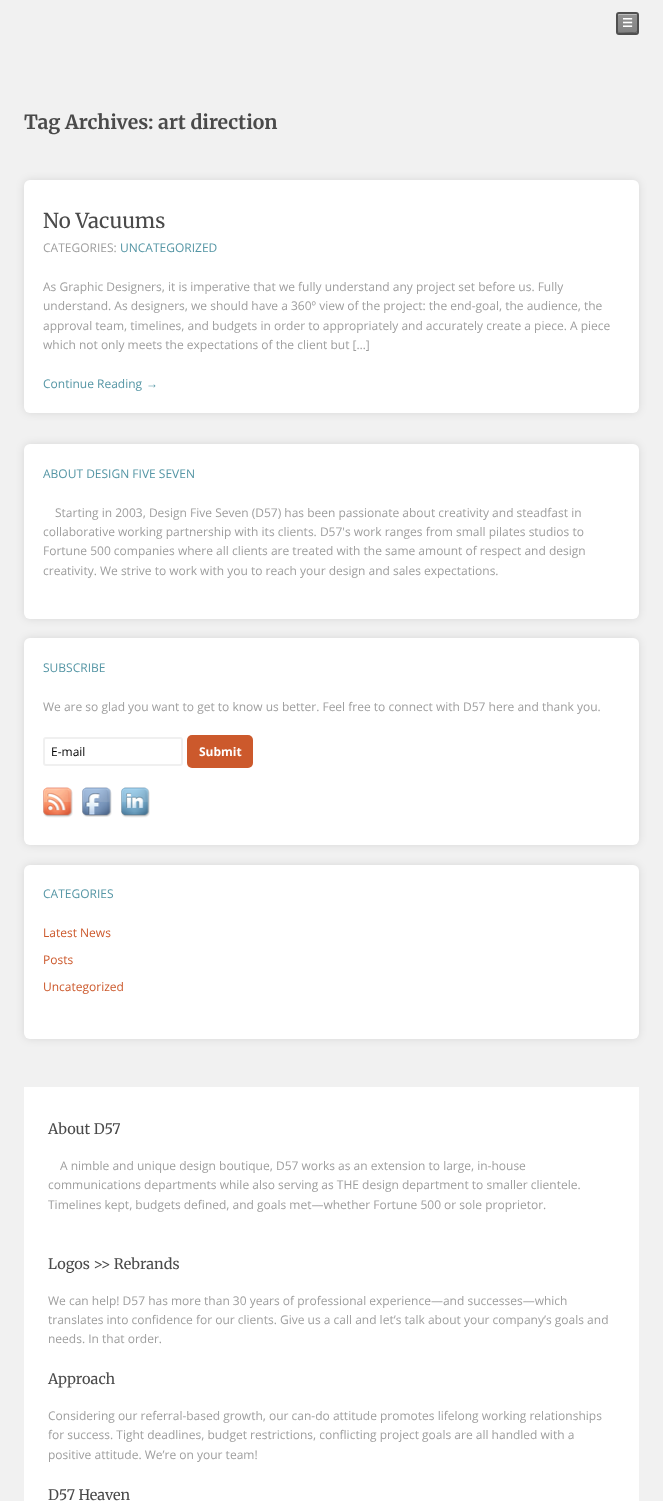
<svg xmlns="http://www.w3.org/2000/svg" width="663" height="1501">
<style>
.a{font:bold 12px DejaVu Sans;fill:#fff}
.b{font:bold 19.4px Merriweather;fill:#4a4a4a}
.c{font:20.5px Merriweather;fill:#4a4a4a}
.d{font:12px Open Sans;fill:#9e9e9e}
.e{font:12px Open Sans;fill:#5596a5}
.f{font:12px Liberation Sans;fill:#5596a5}
.g{font:12px Open Sans;fill:#000}
.h{font:bold 12px Open Sans;fill:#fff}
.i{font:12px Open Sans;fill:#cc592c}
.j{font:14.5px Merriweather;fill:#4a4a4a}
</style>
<defs>
<linearGradient id="g1" gradientUnits="userSpaceOnUse" x1="628" y1="14" x2="628" y2="33"><stop offset="0" stop-color="#939393"/><stop offset="1" stop-color="#828282"/></linearGradient>
</defs>
<rect width="100%" height="100%" fill="#f1f1f1"/>
<rect fill="url(#g1)" x="618" y="14" width="19" height="19" rx="1"/>
<path fill="#606060" d="M618 30c0 3.5 0 3 4 3h11c3.5 0 4 .5 4-2.5c-.5 2.5-4 1.5-5.5 1.5l-10 .5c-2.5 0-3.5 0-3.5-2.5z"/>
<path fill="#ffffff66" d="M619 15h18c0-.5-.5-1-1-1h-17c-.5 0-1 .5-1 1v1.5c0-1 .5-1.5 1-1.5z"/>
<rect fill="none" stroke="#4f4f4f" stroke-width="2" x="617" y="13" width="21" height="21" rx="2"/>
<rect fill="#0000001a" filter="blur(4px)" x="24" y="180" width="615" height="233" rx="6"/>
<rect fill="#fff" x="24" y="180" width="615" height="233" rx="6"/>
<rect fill="#0000001a" filter="blur(4px)" x="24" y="444" width="615" height="175" rx="6"/>
<rect fill="#fff" x="24" y="444" width="615" height="175" rx="6"/>
<rect fill="#0000001a" filter="blur(4px)" x="24" y="638" width="615" height="207" rx="6"/>
<rect fill="#fff" x="24" y="638" width="615" height="207" rx="6"/>
<rect fill="none" stroke="#f0f0f0" stroke-width="2" x="44" y="738" width="138" height="27" rx="2"/>
<rect fill="#cc592c" x="187" y="735" width="66" height="33" rx="5"/>
<image href="1.png" x="43" y="787" width="30" height="31"/>
<image href="2.png" x="82" y="787" width="30" height="30"/>
<image href="3.png" x="121" y="787" width="29" height="31"/>
<rect fill="#0000001a" filter="blur(4px)" x="24" y="865" width="615" height="174" rx="6"/>
<rect fill="#fff" x="24" y="865" width="615" height="174" rx="6"/>
<path fill="#fff" d="M24 1087h615v414H24z"/>
<text class="a" x="622" y="27">☰</text>
<text class="b" x="24" y="129">Tag Archives: art direction</text>
<text class="c" x="43" y="228">No Vacuums</text>
<text class="d" x="43" y="252">CATEGORIES:</text>
<text class="e" x="120" y="252">UNCATEGORIZED</text>
<text class="d" x="43" y="291">As Graphic Designers, it is imperative that we fully understand any project set before us. Fully</text>
<text class="d" x="43" y="310">understand. As designers, we should have a 360º view of the project: the end-goal, the audience, the</text>
<text class="d" x="43" y="330">approval team, timelines, and budgets in order to appropriately and accurately create a piece. A piece</text>
<text class="d" x="43" y="349">which not only meets the expectations of the client but […]</text>
<text class="e" x="43" y="388">Continue Reading</text>
<text class="f" x="146" y="388">→</text>
<text class="e" x="43" y="478">ABOUT DESIGN FIVE SEVEN</text>
<text class="d" x="55" y="517">Starting in 2003, Design Five Seven (D57) has been passionate about creativity and steadfast in</text>
<text class="d" x="43" y="536">collaborative working partnership with its clients. D57's work ranges from small pilates studios to</text>
<text class="d" x="43" y="555">Fortune 500 companies where all clients are treated with the same amount of respect and design</text>
<text class="d" x="43" y="575">creativity. We strive to work with you to reach your design and sales expectations.</text>
<text class="e" x="43" y="672">SUBSCRIBE</text>
<text class="d" x="43" y="711">We are so glad you want to get to know us better. Feel free to connect with D57 here and thank you.</text>
<text class="g" x="51" y="756">E-mail</text>
<text class="h" x="199" y="756">Submit</text>
<text class="e" x="43" y="898">CATEGORIES</text>
<text class="i" x="43" y="937">Latest News</text>
<text class="i" x="43" y="964">Posts</text>
<text class="i" x="43" y="991">Uncategorized</text>
<text class="j" x="48" y="1134">About D57</text>
<text class="d" x="60" y="1170">A nimble and unique design boutique, D57 works as an extension to large, in-house</text>
<text class="d" x="48" y="1189">communications departments while also serving as THE design department to smaller clientele.</text>
<text class="d" x="48" y="1209">Timelines kept, budgets defined, and goals met—whether Fortune 500 or sole proprietor.</text>
<text class="j" x="48" y="1269">Logos &gt;&gt; Rebrands</text>
<text class="d" x="48" y="1305">We can help! D57 has more than 30 years of professional experience—and successes—which</text>
<text class="d" x="48" y="1324">translates into confidence for our clients. Give us a call and let’s talk about your company’s goals and</text>
<text class="d" x="48" y="1343">needs. In that order.</text>
<text class="j" x="48" y="1384">Approach</text>
<text class="d" x="48" y="1420">Considering our referral-based growth, our can-do attitude promotes lifelong working relationships</text>
<text class="d" x="48" y="1439">for success. Tight deadlines, budget restrictions, conflicting project goals are all handled with a</text>
<text class="d" x="48" y="1459">positive attitude. We’re on your team!</text>
<text class="j" x="48" y="1500">D57 Heaven</text>
</svg>
